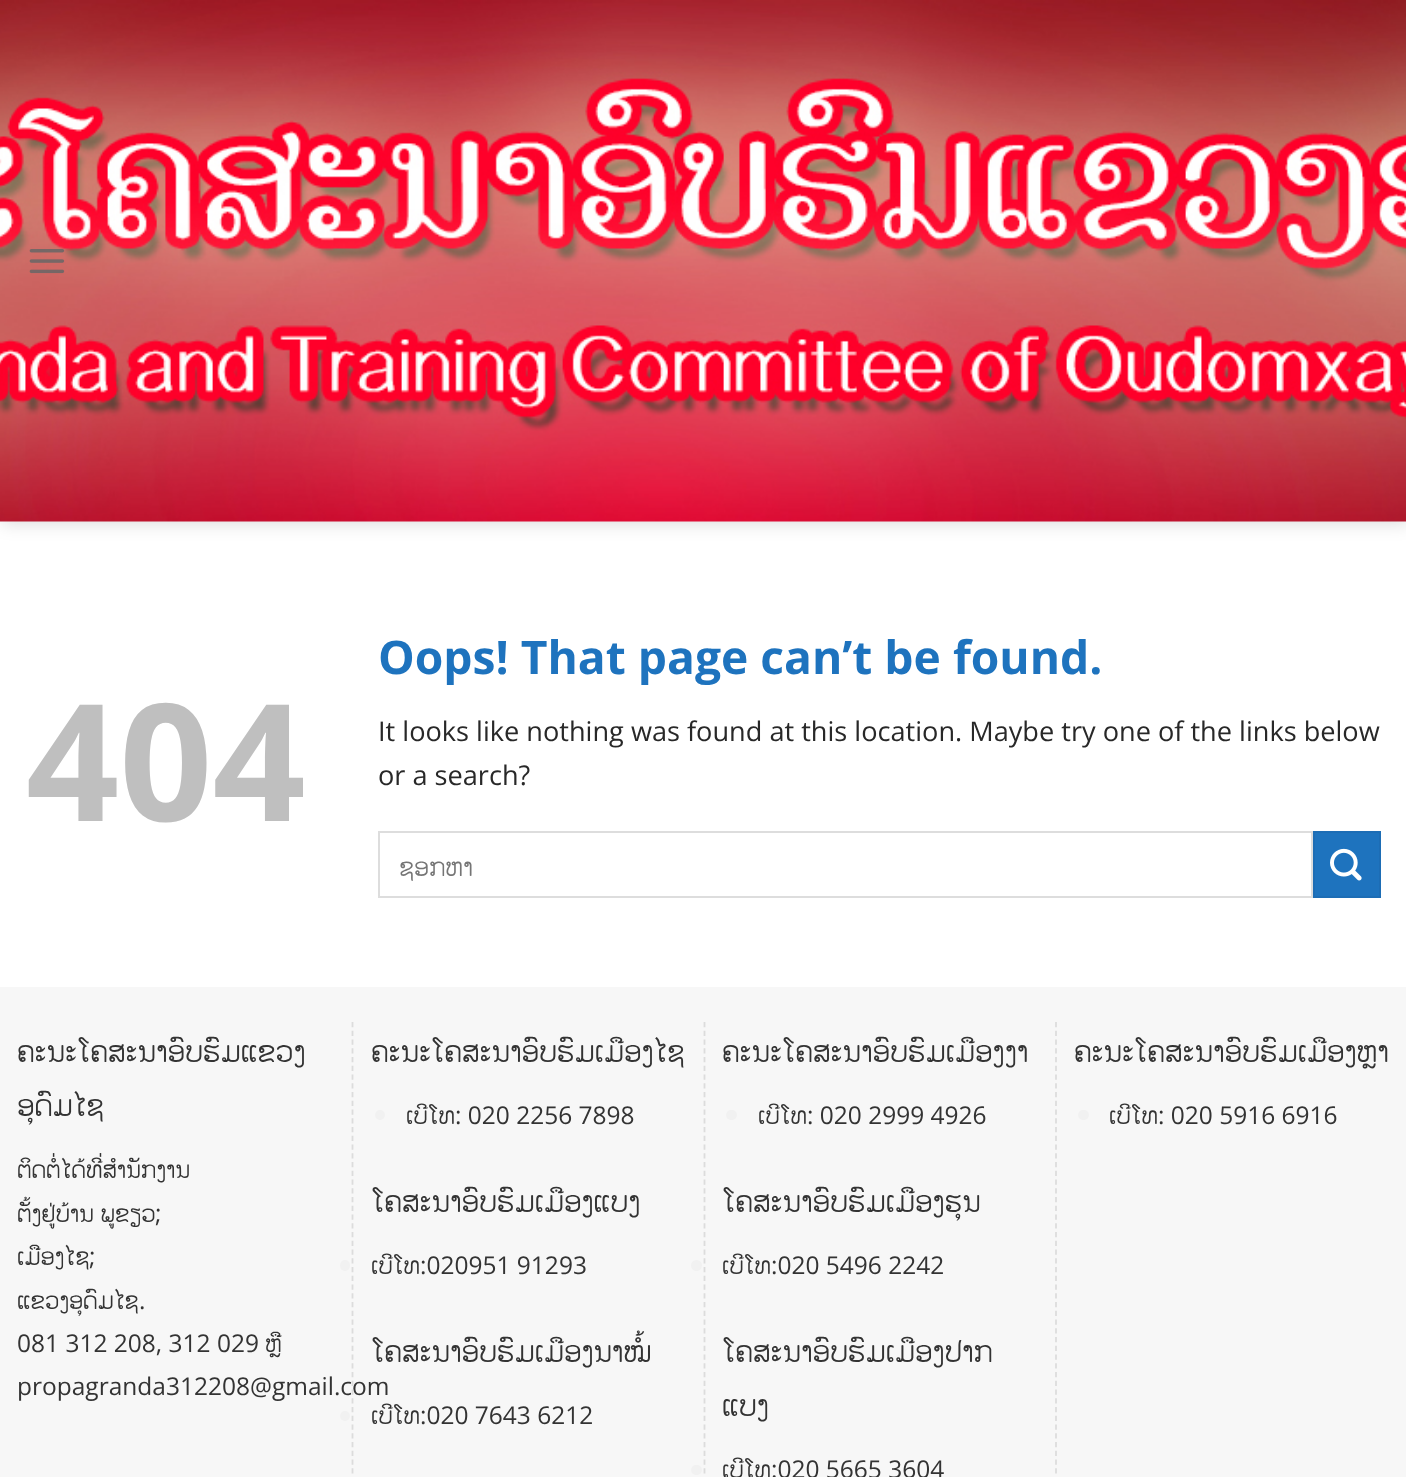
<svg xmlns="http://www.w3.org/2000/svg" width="1406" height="1477">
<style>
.a{font:bold 163px Open Sans;fill:#bfbfbf}
.b{font:bold 46.2px Open Sans;fill:#1e73be}
.c{font:27.15px Open Sans;fill:#282828}
.d{font:26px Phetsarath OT;fill:#757575}
.e{font:30.5px Phetsarath OT;fill:#333}
.f{font:24.5px Phetsarath OT;fill:#333}
.g{font:24.5px Open Sans;fill:#333}
</style>
<rect width="100%" height="100%" fill="#fff"/>
<path fill="#00000026" filter="blur(9px)" d="M2 2h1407v521H2z"/>
<image href="1.png" x="0" y="0" width="1406" height="522"/>
<image href="2.png" x="29" y="249" width="36" height="25"/>
<path fill="none" stroke="#ddd" stroke-width="2" d="M379 832h933v65H379z"/>
<path fill="#1e73be" stroke="#1d6db5" stroke-width="2" d="M1314 832h66v65H1314z"/>
<image href="3.png" x="1330" y="848" width="32" height="33"/>
<path fill="#f7f7f7" d="M0 987h1406v490H0z"/>
<circle fill="#f1f1f1" cx="380" cy="1115" r="5"/>
<rect fill="#f1f1f1" x="340" y="1260" width="10" height="11" rx="5"/>
<circle fill="#f1f1f1" cx="345" cy="1416" r="5"/>
<path fill="none" stroke="#dcdcdc" stroke-width="1.8" stroke-dasharray="5.25 3.5" d="M704.5 1022v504"/>
<rect fill="#f1f1f1" x="726" y="1110" width="11" height="10" rx="5"/>
<circle fill="#f1f1f1" cx="696.5" cy="1265.5" r="5.5"/>
<rect fill="#f1f1f1" x="691" y="1465" width="11" height="10" rx="5"/>
<path fill="none" stroke="#dcdcdc" stroke-width="1.8" stroke-dasharray="5.25 3.5" d="M1056 1022v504"/>
<rect fill="#f1f1f1" x="1078" y="1110" width="11" height="10" rx="5"/>
<text class="a" x="26" y="821">404</text>
<text class="b" x="378" y="674">Oops! That page can’t be found.</text>
<text class="c" x="378" y="741">It looks like nothing was found at this location. Maybe try one of the links below</text>
<text class="c" x="378" y="785">or a search?</text>
<text class="d" x="399" y="876">ຊອກຫາ</text>
<text class="e" x="17" y="1062">ຄະນະໂຄສະນາອົບຮົມແຂວງ</text>
<text class="e" x="17" y="1116">ອຸດົມໄຊ</text>
<text class="f" x="17" y="1178">ຕິດຕໍ່ໄດ້ທີ່ສຳນັກງານ</text>
<text class="f" x="17" y="1222" word-spacing="-1">ຕັ້ງຢູ່ບ້ານ ພູຂຽວ</text>
<text class="g" x="155" y="1222">;</text>
<text class="f" x="17" y="1265">ເມືອງໄຊ</text>
<text class="g" x="89" y="1265">;</text>
<text class="f" x="17" y="1309">ແຂວງອຸດົມໄຊ</text>
<text class="g" x="139" y="1309">.</text>
<text class="g" x="17" y="1352">081 312 208, 312 029</text>
<text class="f" x="265" y="1352">ຫຼື</text>
<text class="g" x="17" y="1395">propagranda312208@gmail.com</text>
<path fill="none" stroke="#dcdcdc" stroke-width="1.8" stroke-dasharray="5.25 3.5" d="M352.5 1022v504"/>
<text class="e" x="371" y="1062">ຄະນະໂຄສະນາອົບຮົມເມືອງໄຊ</text>
<text class="f" x="406" y="1124">ເບີໂທ</text>
<text class="g" x="455" y="1124">: 020 2256 7898</text>
<text class="e" x="371" y="1212">ໂຄສະນາອົບຮົມເມືອງແບງ</text>
<text class="f" x="371" y="1274">ເບີໂທ</text>
<text class="g" x="420" y="1274">:020951 91293</text>
<text class="e" x="371" y="1362">ໂຄສະນາອົບຮົມເມືອງນາໝໍ້</text>
<text class="f" x="371" y="1424">ເບີໂທ</text>
<text class="g" x="420" y="1424">:020 7643 6212</text>
<text class="e" x="722" y="1062">ຄະນະໂຄສະນາອົບຮົມເມືອງງາ</text>
<text class="f" x="758" y="1124">ເບີໂທ</text>
<text class="g" x="807" y="1124">: 020 2999 4926</text>
<text class="e" x="722" y="1212">ໂຄສະນາອົບຮົມເມືອງຮຸນ</text>
<text class="f" x="722" y="1274">ເບີໂທ</text>
<text class="g" x="771" y="1274">:020 5496 2242</text>
<text class="e" x="722" y="1362">ໂຄສະນາອົບຮົມເມືອງປາກ</text>
<text class="e" x="722" y="1416">ແບງ</text>
<text class="f" x="722" y="1478">ເບີໂທ</text>
<text class="g" x="771" y="1478">:020 5665 3604</text>
<text class="e" x="1074" y="1062">ຄະນະໂຄສະນາອົບຮົມເມືອງຫຼາ</text>
<text class="f" x="1109" y="1124">ເບີໂທ</text>
<text class="g" x="1158" y="1124">: 020 5916 6916</text>
</svg>
